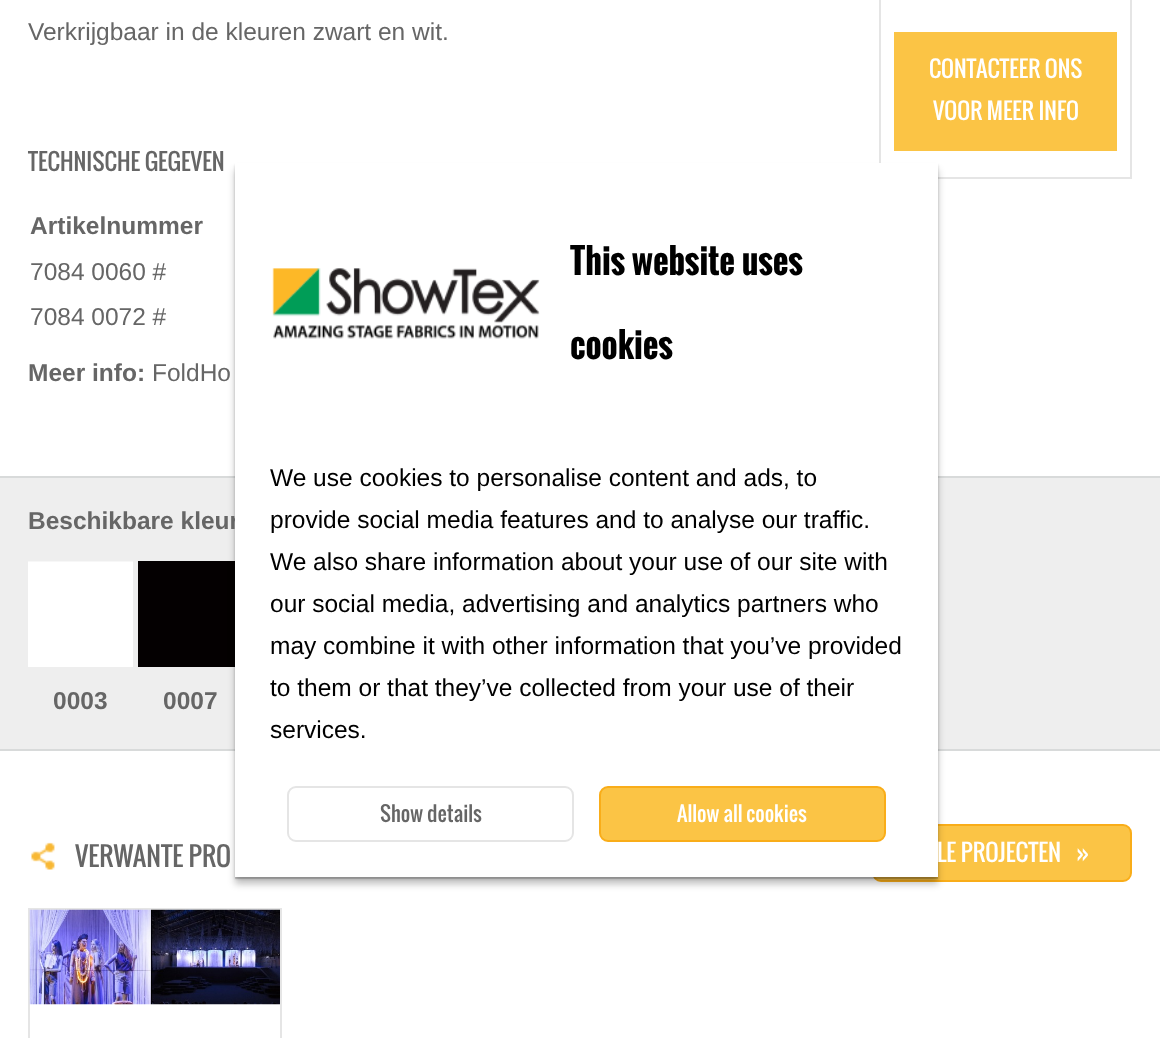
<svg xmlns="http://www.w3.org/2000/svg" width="1172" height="1038">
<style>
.a{font:24.5px Liberation Sans;fill:#666}
.b{font:27.5px Oswald;fill:#666}
.c{font:bold 24.5px Liberation Sans;fill:#666}
.d{font:27px Oswald;fill:#fff}
.e{font:31.5px Oswald;fill:#666}
.f{font:28px Oswald;fill:#fff}
.g{font:bold 42px Oswald;fill:#000}
.h{font:24.5px Liberation Sans;fill:#000}
.i{font:24.5px Oswald;fill:#666}
.j{font:24.5px Oswald;fill:#fff}
</style>
<rect width="100%" height="100%" fill="#fff"/>
<path fill="none" stroke="#e5e5e5" stroke-width="2" d="M880 -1h251v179H880z"/>
<path fill="#fbc445" d="M894 32h223v119H894z"/>
<path fill="#eee" d="M0 478h1160v271H0z"/>
<path fill="#d8dada" d="M0 476h1160v2H0z"/>
<path fill="#d8dada" d="M0 749h1160v2H0z"/>
<path fill="#fff" d="M28 562h105v105H28z"/>
<path fill="#f7f7f7" d="M28 561h105v1H28z"/>
<path fill="#040001" d="M138 561h97v106H138z"/>
<image href="1.png" x="31" y="842" width="24" height="28"/>
<rect fill="#fbc445" stroke="#f9ad19" stroke-width="2" x="873" y="825" width="258" height="56" rx="8"/>
<path fill="none" stroke="#e5e5e5" stroke-width="2" d="M29 909h252v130H29z"/>
<image href="2.png" x="29" y="909" width="251" height="96"/>
<path fill="#00000040" filter="blur(3.5px)" d="M235 170h703v714H235z"/>
<path fill="#0000002b" filter="blur(1px)" d="M235 165h703v714H235z"/>
<path fill="#0000001f" filter="blur(0.5px)" d="M235 165h703v714H235z"/>
<text class="a" x="28" y="40">Verkrijgbaar in de kleuren zwart en wit.</text>
<text class="b" x="28" y="171">TECHNISCHE GEGEVEN</text>
<text class="c" x="30" y="234">Artikelnummer</text>
<text class="a" x="30" y="280">7084 0060 #</text>
<text class="a" x="30" y="325">7084 0072 #</text>
<text class="c" x="28" y="381">Meer info:</text>
<text class="a" x="152" y="381">FoldHo</text>
<text class="d" x="929" y="78">CONTACTEER ONS</text>
<text class="d" x="933" y="120">VOOR MEER INFO</text>
<text class="c" x="28" y="529">Beschikbare kleur</text>
<text class="c" x="53" y="709">0003</text>
<text class="c" x="163" y="709">0007</text>
<text class="e" x="75" y="867">VERWANTE PRO</text>
<text class="f" x="937" y="862">LE PROJECTEN</text>
<text class="f" x="1077" y="862">»</text>
<path fill="#fff" d="M235 163h703v714H235z"/>
<image href="3.png" x="272" y="268" width="268" height="71"/>
<text class="g" x="570" y="275">This website uses</text>
<text class="g" x="570" y="359">cookies</text>
<text class="h" x="270" y="486">We use cookies to personalise content and ads, to</text>
<text class="h" x="270" y="528">provide social media features and to analyse our traffic.</text>
<text class="h" x="270" y="570">We also share information about your use of our site with</text>
<text class="h" x="270" y="612">our social media, advertising and analytics partners who</text>
<text class="h" x="270" y="654">may combine it with other information that you’ve provided</text>
<text class="h" x="270" y="696">to them or that they’ve collected from your use of their</text>
<text class="h" x="270" y="738">services.</text>
<rect fill="none" stroke="#e5e5e5" stroke-width="2" x="288" y="787" width="285" height="54" rx="8"/>
<text class="i" x="380" y="822">Show details</text>
<rect fill="#fbc445" stroke="#f9ad19" stroke-width="2" x="600" y="787" width="285" height="54" rx="8"/>
<text class="j" x="677" y="822">Allow all cookies</text>
</svg>
